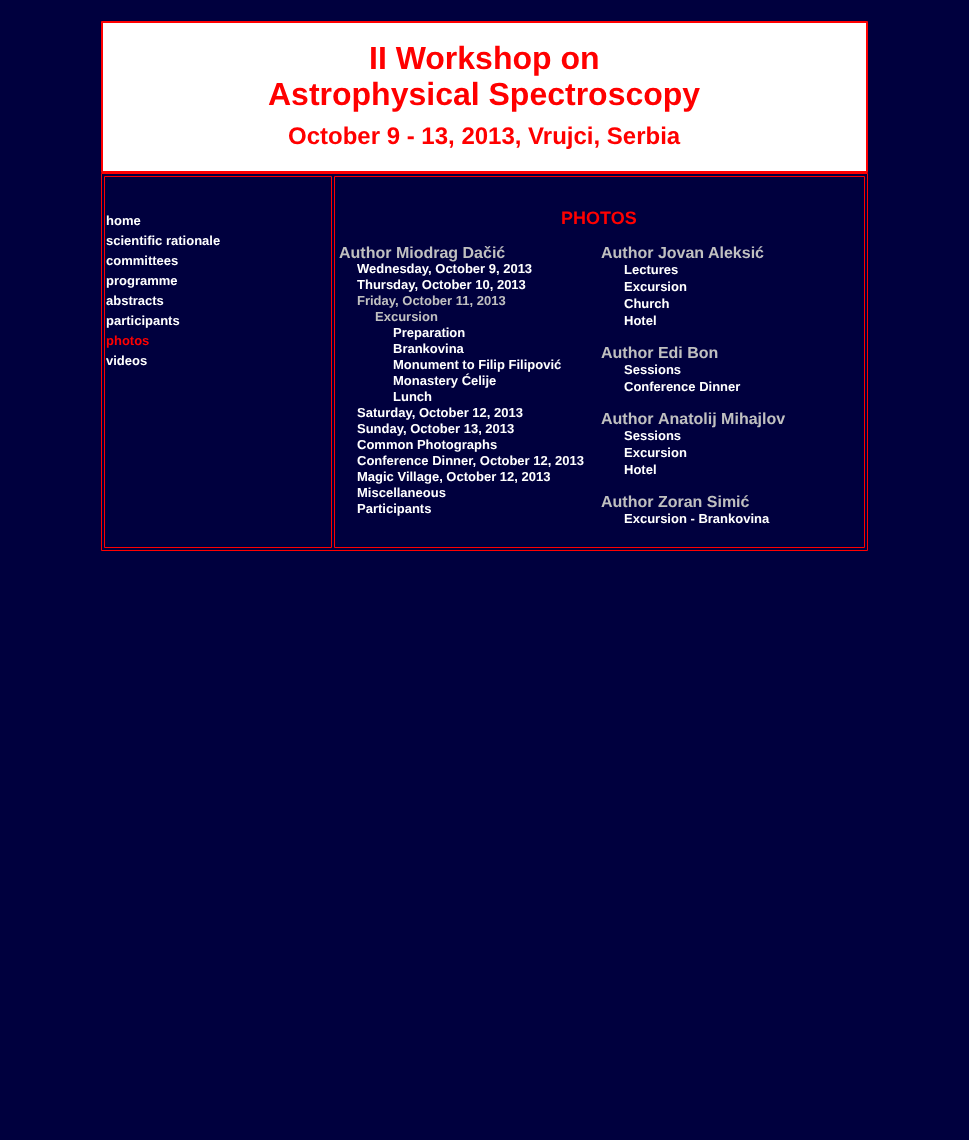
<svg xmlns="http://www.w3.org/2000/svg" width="969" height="1140">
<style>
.a{font:bold 32px Liberation Sans;fill:#f00}
.b{font:bold 24px Liberation Sans;fill:#f00}
.c{font:bold 13px Liberation Sans;fill:#fff}
.d{font:bold 13px Liberation Sans;fill:#f00}
.e{font:bold 18px Liberation Sans;fill:#f00}
.f{font:bold 16px Liberation Sans;fill:#c0c0c0}
.g{font:bold 13px Liberation Sans;fill:#c0c0c0}
</style>
<rect width="100%" height="100%" fill="#00003e"/>
<path fill="none" stroke="#f00" d="M101.5 21.5h766v151H101.5z"/>
<path fill="#fff" stroke="#f00" d="M102.5 22.5h764v149H102.5z"/>
<path fill="none" stroke="#f00" d="M101.5 173.5h766v377H101.5z"/>
<path fill="none" stroke="#f00" d="M104.5 176.5h227v371H104.5z"/>
<path fill="none" stroke="#f00" d="M334.5 176.5h530v371H334.5z"/>
<text class="a" x="369" y="69">II Workshop on</text>
<text class="a" x="268" y="105">Astrophysical Spectroscopy</text>
<text class="b" x="288" y="144">October 9 - 13, 2013, Vrujci, Serbia</text>
<text class="c" x="106" y="225">home</text>
<text class="c" x="106" y="245">scientific rationale</text>
<text class="c" x="106" y="265">committees</text>
<text class="c" x="106" y="285">programme</text>
<text class="c" x="106" y="305">abstracts</text>
<text class="c" x="106" y="325">participants</text>
<text class="d" x="106" y="345">photos</text>
<text class="c" x="106" y="365">videos</text>
<text class="e" x="561" y="224">PHOTOS</text>
<text class="f" x="339" y="258">Author Miodrag Dačić</text>
<text class="c" x="357" y="273">Wednesday, October 9, 2013</text>
<text class="c" x="357" y="289">Thursday, October 10, 2013</text>
<text class="g" x="357" y="305">Friday, October 11, 2013</text>
<text class="g" x="375" y="321">Excursion</text>
<text class="c" x="393" y="337">Preparation</text>
<text class="c" x="393" y="353">Brankovina</text>
<text class="c" x="393" y="369">Monument to Filip Filipović</text>
<text class="c" x="393" y="385">Monastery Ćelije</text>
<text class="c" x="393" y="401">Lunch</text>
<text class="c" x="357" y="417">Saturday, October 12, 2013</text>
<text class="c" x="357" y="433">Sunday, October 13, 2013</text>
<text class="c" x="357" y="449">Common Photographs</text>
<text class="c" x="357" y="465">Conference Dinner, October 12, 2013</text>
<text class="c" x="357" y="481">Magic Village, October 12, 2013</text>
<text class="c" x="357" y="497">Miscellaneous</text>
<text class="c" x="357" y="513">Participants</text>
<text class="f" x="601" y="258">Author Jovan Aleksić</text>
<text class="c" x="624" y="274">Lectures</text>
<text class="c" x="624" y="291">Excursion</text>
<text class="c" x="624" y="308">Church</text>
<text class="c" x="624" y="325">Hotel</text>
<text class="f" x="601" y="358">Author Edi Bon</text>
<text class="c" x="624" y="374">Sessions</text>
<text class="c" x="624" y="391">Conference Dinner</text>
<text class="f" x="601" y="424">Author</text>
<text class="f" x="658" y="424">Anatolij Mihajlov</text>
<text class="c" x="624" y="440">Sessions</text>
<text class="c" x="624" y="457">Excursion</text>
<text class="c" x="624" y="474">Hotel</text>
<text class="f" x="601" y="507">Author Zoran Simić</text>
<text class="c" x="624" y="523">Excursion - Brankovina</text>
</svg>
